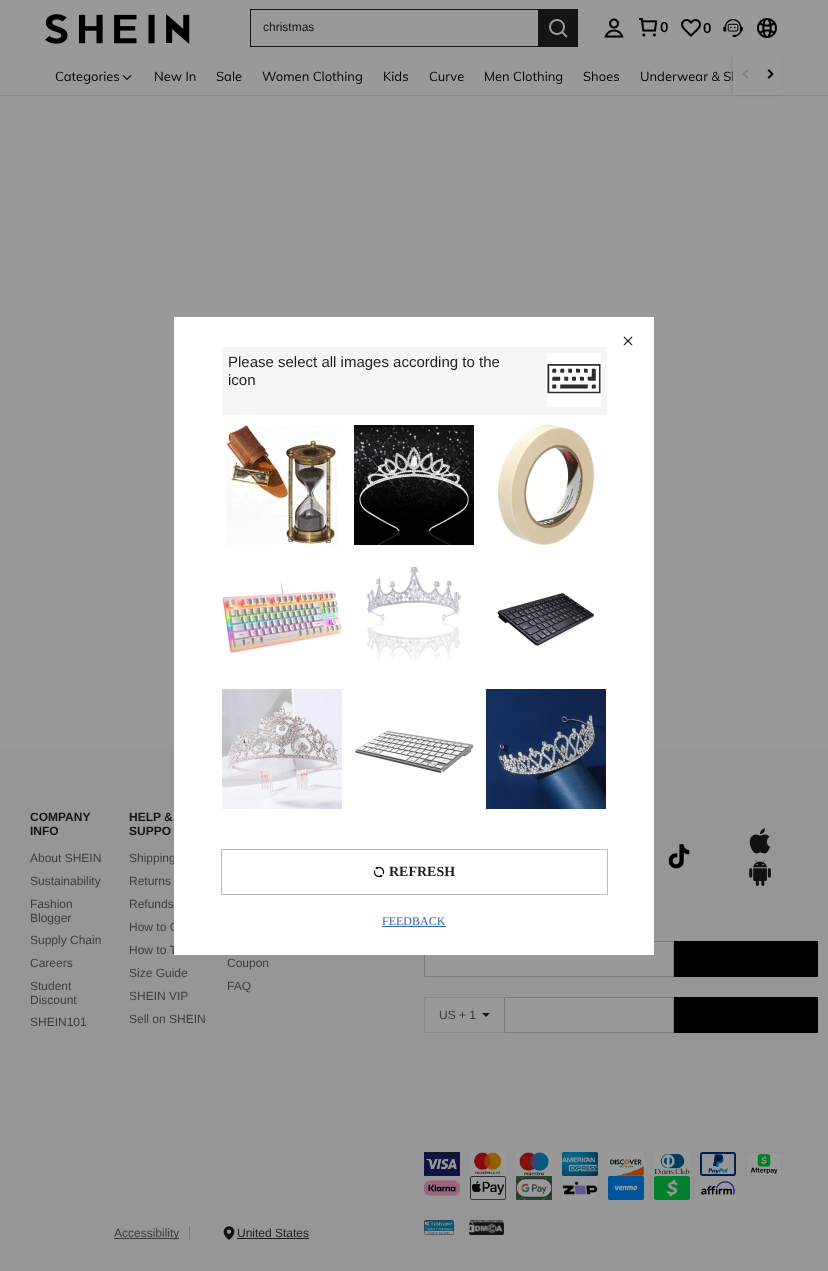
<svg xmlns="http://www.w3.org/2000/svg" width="828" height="1271">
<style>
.a{font:12px Liberation Sans;fill:#141414}
.b{font:bold 14px Muli;fill:#000}
.c{font:13px Muli;fill:#000}
.d{font:bold 12px Liberation Sans;fill:#141414}
.e{font:12px Liberation Sans;fill:#3d3d3d}
.f{font:12px Liberation Sans;fill:#1e1e1e}
.g{font:15px Liberation Sans;fill:#1e1e1e}
.h{font:bold 14px Liberation Serif;fill:#1e1e1e}
.i{font:12px Liberation Serif;fill:#2d68a8}
</style>
<rect width="100%" height="100%" fill="#999"/>
<path fill="#898989" d="M0 95h828v1H0z"/>
<path fill="#00000014" filter="blur(1.5px)" d="M731 56h50v39H731z"/>
<path fill="#999" d="M731 55h50v1H731z"/>
<image href="1.png" x="45" y="14" width="145" height="30"/>
<path fill="#141414" d="M250 9h288v1H250z"/>
<path fill="#141414" d="M250 46h288v1H250z"/>
<path fill="#141414" d="M250 9h1v38H250z"/>
<path fill="#141414" d="M538 9h40v38H538z"/>
<image href="2.png" x="549" y="19" width="19" height="19"/>
<image href="3.png" x="604" y="18" width="20" height="20"/>
<image href="4.png" x="639" y="18" width="19" height="19"/>
<image href="5.png" x="681" y="19" width="20" height="18"/>
<image href="6.png" x="723" y="19" width="20" height="19"/>
<image href="7.png" x="757" y="18" width="20" height="20"/>
<image href="8.png" x="122" y="75" width="10" height="5"/>
<path fill="#969696" d="M0 751h828v520H0z"/>
<image href="11.png" x="668" y="844" width="22" height="25"/>
<image href="12.png" x="749" y="828" width="22" height="26"/>
<image href="13.png" x="749" y="860" width="22" height="26"/>
<path fill="#999" stroke="#7a7a7a" d="M424.5 941.5h249v35H424.5z"/>
<path fill="#000" d="M674 941h144v36H674z"/>
<path fill="#999" d="M425 998h79v34H425z"/>
<path fill="#898989" d="M424 997h80v1H424z"/>
<path fill="#898989" d="M424 1032h80v1H424z"/>
<path fill="#898989" d="M424 997h1v36H424z"/>
<path fill="#141414" d="M482 1013h8l-4 4z"/>
<path fill="#999" stroke="#7a7a7a" d="M504.5 997.5h169v35H504.5z"/>
<path fill="#000" d="M674 997h144v36H674z"/>
<image href="14.png" x="424" y="1152" width="36" height="24"/>
<image href="15.png" x="470" y="1152" width="36" height="24"/>
<image href="16.png" x="516" y="1152" width="36" height="24"/>
<image href="17.png" x="562" y="1152" width="36" height="24"/>
<image href="18.png" x="608" y="1152" width="36" height="24"/>
<image href="19.png" x="654" y="1152" width="36" height="24"/>
<image href="20.png" x="700" y="1152" width="36" height="24"/>
<image href="21.png" x="746" y="1152" width="36" height="24"/>
<image href="22.png" x="424" y="1180" width="36" height="16"/>
<image href="23.png" x="470" y="1176" width="36" height="24"/>
<image href="24.png" x="516" y="1176" width="36" height="24"/>
<image href="25.png" x="562" y="1176" width="36" height="24"/>
<image href="26.png" x="608" y="1176" width="36" height="24"/>
<image href="27.png" x="654" y="1176" width="36" height="24"/>
<image href="28.png" x="700" y="1176" width="36" height="24"/>
<path fill="#7a7a7a" d="M189 1226h1v14H189z"/>
<path fill="#3d3d3d" d="M114 1238h65v1H114z"/>
<image href="29.png" x="223" y="1226" width="12" height="14"/>
<path fill="#1e1e1e" d="M237 1238h72v1H237z"/>
<image href="30.png" x="424" y="1220" width="30" height="15"/>
<image href="31.png" x="469" y="1220" width="35" height="15"/>
<path fill="#0000004d" filter="blur(0.5px)" d="M174 317h480v638H174z"/>
<text class="a" x="263" y="31">christmas</text>
<text class="b" x="660" y="32">0</text>
<text class="b" x="703" y="33">0</text>
<text class="c" x="55" y="81">Categories</text>
<text class="c" x="154" y="81">New In</text>
<text class="c" x="216" y="81">Sale</text>
<text class="c" x="262" y="81">Women Clothing</text>
<text class="c" x="383" y="81">Kids</text>
<text class="c" x="429" y="81">Curve</text>
<text class="c" x="484" y="81">Men Clothing</text>
<text class="c" x="583" y="81">Shoes</text>
<text class="c" x="640" y="81">Underwear &amp; Sl</text>
<path fill="#999" d="M733 56h49v39H733z"/>
<image href="9.png" x="742" y="69" width="7" height="10"/>
<image href="10.png" x="767" y="69" width="7" height="10"/>
<text class="d" x="30" y="821">COMPANY</text>
<text class="d" x="30" y="835">INFO</text>
<text class="e" x="30" y="862">About SHEIN</text>
<text class="e" x="30" y="885">Sustainability</text>
<text class="e" x="30" y="908">Fashion</text>
<text class="e" x="30" y="922">Blogger</text>
<text class="e" x="30" y="944">Supply Chain</text>
<text class="e" x="30" y="967">Careers</text>
<text class="e" x="30" y="990">Student</text>
<text class="e" x="30" y="1004">Discount</text>
<text class="e" x="30" y="1026">SHEIN101</text>
<text class="d" x="129" y="821">HELP &amp;</text>
<text class="d" x="129" y="835">SUPPO</text>
<text class="e" x="129" y="862">Shipping</text>
<text class="e" x="129" y="885">Returns</text>
<text class="e" x="129" y="908">Refunds</text>
<text class="e" x="129" y="931">How to O</text>
<text class="e" x="129" y="954">How to T</text>
<text class="e" x="129" y="977">Size Guide</text>
<text class="e" x="129" y="1000">SHEIN VIP</text>
<text class="e" x="129" y="1023">Sell on SHEIN</text>
<text class="e" x="227" y="967">Coupon</text>
<text class="e" x="227" y="990">FAQ</text>
<text class="e" x="439" y="1019">US + 1</text>
<text class="e" x="114" y="1237">Accessibility</text>
<text class="f" x="237" y="1237">United States</text>
<path fill="#fff" d="M174 317h480v638H174z"/>
<image href="32.png" x="623" y="336" width="10" height="10"/>
<path fill="#f6f6f6" d="M222 347h385v68H222z"/>
<text class="g" x="228" y="367">Please select all images according to the</text>
<text class="g" x="228" y="385">icon</text>
<path fill="#fff" d="M547 353h54v54H547z"/>
<image href="33.png" x="547" y="364" width="54" height="30"/>
<image href="34.png" x="222" y="425" width="120" height="120"/>
<image href="35.png" x="354" y="425" width="120" height="120"/>
<image href="36.png" x="497" y="425" width="98" height="120"/>
<image href="37.png" x="222" y="581" width="120" height="72"/>
<image href="38.png" x="366" y="566" width="95" height="95"/>
<image href="39.png" x="497" y="593" width="98" height="54"/>
<image href="40.png" x="222" y="689" width="120" height="120"/>
<image href="41.png" x="355" y="730" width="119" height="43"/>
<image href="42.png" x="486" y="689" width="120" height="120"/>
<path fill="none" stroke="#bbb" d="M221.5 849.5h386v45H221.5z"/>
<image href="43.png" x="373" y="866" width="12" height="12"/>
<text class="h" x="389" y="876">REFRESH</text>
<text class="i" x="382" y="925">FEEDBACK</text>
<path fill="#2d68a8" d="M382 926h64v1H382z"/>
</svg>
